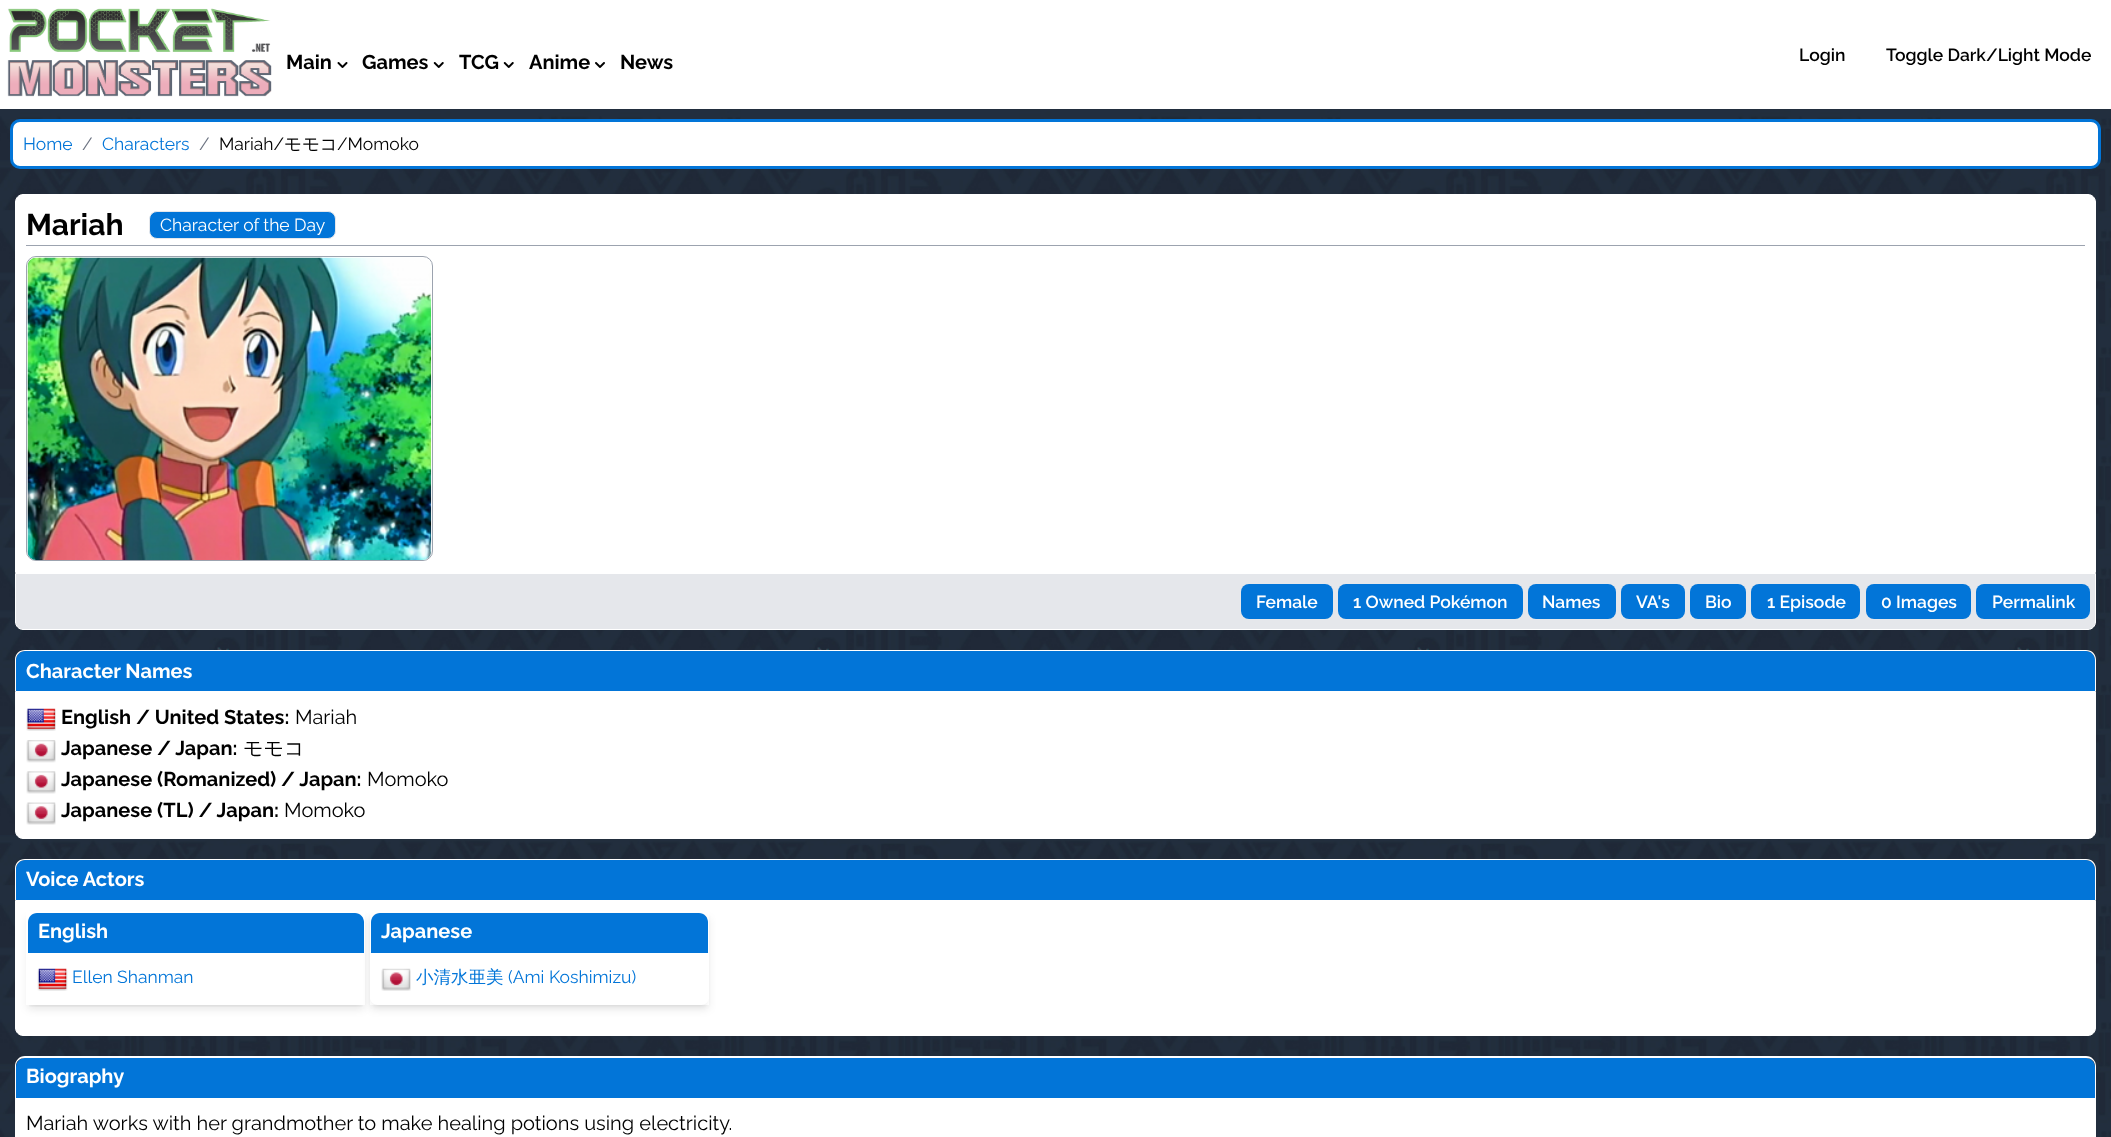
<svg xmlns="http://www.w3.org/2000/svg" width="2111" height="1137">
<style>
.a{font:bold 20px Raleway;fill:#000}
.b{font:600 17.5px Raleway;fill:#000}
.c{font:17.5px Raleway;fill:#0275d8}
.d{font:17.5px Raleway;fill:#6b7280}
.e{font:17.5px Raleway;fill:#000}
.f{font:500 17.5px WenQuanYi Zen Hei;fill:#000}
.g{font:bold 30px Raleway;fill:#000}
.h{font:17.5px Raleway;fill:#fff}
.i{font:600 17.5px Raleway;fill:#fff}
.j{font:bold 20px Raleway;fill:#fff}
.k{font:20px Raleway;fill:#000}
.l{font:500 20px WenQuanYi Zen Hei;fill:#000}
.m{font:500 17.5px WenQuanYi Zen Hei;fill:#0275d8}
</style>
<defs>
<clipPath id="clip1"><path d="M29 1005h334v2H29z"/></clipPath>
<clipPath id="clip2"><path d="M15 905h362v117h-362zm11 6h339v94h-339z" clip-rule="evenodd"/></clipPath>
<clipPath id="clip3"><path d="M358 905h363v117h-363zm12 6h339v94h-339z" clip-rule="evenodd"/></clipPath>
</defs>
<rect width="100%" height="100%" fill="#fff"/>
<image href="1.png" x="0" y="109" width="2111" height="1028"/>
<image href="2.png" x="7" y="8" width="265" height="89"/>
<image href="3.png" x="337" y="62" width="11" height="6"/>
<image href="4.png" x="433" y="62" width="11" height="6"/>
<image href="4.png" x="503" y="62" width="11" height="6"/>
<image href="5.png" x="595" y="62" width="10" height="6"/>
<rect fill="#fff" stroke="#0275d8" stroke-width="3" x="11.5" y="120.5" width="2088" height="47" rx="8.5"/>
<path fill="#fff" stroke="#fff" d="M23 194.5h2065c4 0 7.5 3.5 7.5 7.5v370.5h-2080v-370.5c0-4 3.5-7.5 7.5-7.5z"/>
<path fill="#9ca3af" d="M26 245h2059v1H26z"/>
<rect fill="#0275d8" stroke="#e5e7eb" x="149.5" y="211.5" width="186" height="27" rx="7.5"/>
<rect fill="none" stroke="#9ca3af" x="26.5" y="256.5" width="406" height="304" rx="9.5"/>
<image href="6.png" x="27" y="257" width="405" height="303"/>
<path fill="#e5e7eb" stroke="#fff" d="M15.5 573.5h2080v48.5c0 4-3.5 7.5-7.5 7.5h-2065c-4 0-7.5-3.5-7.5-7.5z"/>
<rect fill="#0275d8" x="1241" y="584" width="92" height="35" rx="8"/>
<rect fill="#0275d8" x="1338" y="584" width="185" height="35" rx="8"/>
<rect fill="#0275d8" x="1528" y="584" width="88" height="35" rx="8"/>
<rect fill="#0275d8" x="1621" y="584" width="64" height="35" rx="8"/>
<rect fill="#0275d8" x="1690" y="584" width="56" height="35" rx="8"/>
<rect fill="#0275d8" x="1751" y="584" width="109" height="35" rx="8"/>
<rect fill="#0275d8" x="1866" y="584" width="105" height="35" rx="8"/>
<rect fill="#0275d8" x="1976" y="584" width="114" height="35" rx="8"/>
<path fill="#0275d8" d="M25 651h2061c5 0 9 4 9 9v31h-2079v-31c0-5 4-9 9-9z"/>
<path fill="#fff" fill-rule="evenodd" d="M25 650h2061c6 0 10 4 10 10v31h-2081v-31c0-6 4-10 10-10zm0 1h2061c5 0 9 4 9 9v31h-2079v-31c0-5 4-9 9-9z"/>
<path fill="#fff" stroke="#fff" d="M15.5 691.5h2080v139.5c0 4-3.5 7.5-7.5 7.5h-2065c-4 0-7.5-3.5-7.5-7.5z"/>
<image href="7.png" x="26" y="708" width="30" height="23"/>
<image href="8.png" x="26" y="740" width="30" height="23"/>
<image href="9.png" x="26" y="771" width="30" height="23"/>
<image href="10.png" x="26" y="802" width="30" height="23"/>
<path fill="#0275d8" d="M25 860h2061c5 0 9 4 9 9v31h-2079v-31c0-5 4-9 9-9z"/>
<path fill="#fff" fill-rule="evenodd" d="M25 859h2061c6 0 10 4 10 10v31h-2081v-31c0-6 4-10 10-10zm0 1h2061c5 0 9 4 9 9v31h-2079v-31c0-5 4-9 9-9z"/>
<path fill="#fff" stroke="#fff" d="M15.5 900.5h2080v127.5c0 4-3.5 7.5-7.5 7.5h-2065c-4 0-7.5-3.5-7.5-7.5z"/>
<g clip-path="url(#clip1)">
<path fill="#0000001a" filter="blur(2.5px)" d="M29 916h334v89H29z"/>
</g>
<g clip-path="url(#clip2)">
<path fill="#0000001a" filter="blur(4px)" d="M28 918h336v91H28z"/>
</g>
<path fill="#0275d8" d="M37 913h318c5 0 9 4 9 9v31h-336v-31c0-5 4-9 9-9z"/>
<path fill="#fff" fill-rule="evenodd" d="M36 911h319c6 0 10 5 10 10v31h-339v-31c0-5 5-10 10-10zm0 1h319c5 0 9 4 9 9v31h-336v-31c0-5 3-9 8-9z"/>
<path fill="#fff" d="M26 953h339v44c0 4.5-3.5 8-8 8h-323c-4.5 0-8-3.5-8-8z"/>
<image href="11.png" x="37" y="968" width="31" height="23"/>
<path fill="#0000001a" filter="blur(2.5px)" d="M373 916h333v89H373z"/>
<g clip-path="url(#clip3)">
<path fill="#0000001a" filter="blur(4px)" d="M371 918h337v91H371z"/>
</g>
<path fill="#0275d8" d="M380 913h319c5 0 9 4 9 9v31h-337v-31c0-5 4-9 9-9z"/>
<path fill="#fff" fill-rule="evenodd" d="M380 911h319c5 0 10 5 10 10v31h-339v-31c0-5 4-10 10-10zm0 1h319c5 0 9 4 9 9v31h-337v-31c0-5 4-9 9-9z"/>
<path fill="#fff" d="M370 953h339v44c0 4.5-3.5 8-8 8h-323c-4.5 0-8-3.5-8-8z"/>
<image href="12.png" x="381" y="968" width="30" height="23"/>
<path fill="#0275d8" d="M25 1058h2061c5 0 9 4 9 9v31h-2079v-31c0-5 4-9 9-9z"/>
<path fill="#fff" fill-rule="evenodd" d="M25 1056h2061c6 0 10 5 10 10v32h-2081v-32c0-5 4-10 10-10zm0 2h2061c5 0 9 3 9 8v32h-2079v-32c0-5 4-8 9-8z"/>
<path fill="#fff" d="M15 1098h2081v39H15z"/>
<text class="a" x="286" y="69">Main</text>
<text class="a" x="362" y="69">Games</text>
<text class="a" x="459" y="69">TCG</text>
<text class="a" x="529" y="69">Anime</text>
<text class="a" x="620" y="69">News</text>
<text class="b" x="1799" y="61">Login</text>
<text class="b" x="1886" y="61">Toggle Dark/Light Mode</text>
<text class="c" x="23" y="150">Home</text>
<text class="d" x="82" y="150">/</text>
<text class="c" x="102" y="150">Characters</text>
<text class="d" x="199" y="150">/</text>
<text class="e" x="219" y="150">Mariah/</text>
<text class="f" x="284" y="150">モモコ</text>
<text class="e" x="337" y="150">/Momoko</text>
<text class="g" x="26" y="235">Mariah</text>
<text class="h" x="160" y="231">Character of the Day</text>
<text class="i" x="1256" y="608">Female</text>
<text class="i" x="1353" y="608">1 Owned Pokémon</text>
<text class="i" x="1542" y="608">Names</text>
<text class="i" x="1636" y="608">VA's</text>
<text class="i" x="1705" y="608">Bio</text>
<text class="i" x="1767" y="608">1 Episode</text>
<text class="i" x="1881" y="608">0 Images</text>
<text class="i" x="1992" y="608">Permalink</text>
<text class="j" x="26" y="678">Character Names</text>
<text class="a" x="61" y="724">English / United States:</text>
<text class="k" x="295" y="724">Mariah</text>
<text class="a" x="61" y="755">Japanese / Japan:</text>
<text class="l" x="243" y="755">モモコ</text>
<text class="a" x="61" y="786">Japanese (Romanized) / Japan:</text>
<text class="k" x="367" y="786">Momoko</text>
<text class="a" x="61" y="817">Japanese (TL) / Japan:</text>
<text class="k" x="284" y="817">Momoko</text>
<text class="j" x="26" y="886">Voice Actors</text>
<text class="j" x="38" y="938">English</text>
<text class="c" x="72" y="983">Ellen Shanman</text>
<text class="j" x="381" y="938">Japanese</text>
<text class="m" x="416" y="983">小清水亜美</text>
<text class="c" x="508" y="983">(Ami Koshimizu)</text>
<text class="j" x="26" y="1083">Biography</text>
<text class="k" x="26" y="1130">Mariah works with her grandmother to make healing potions using electricity.</text>
</svg>
